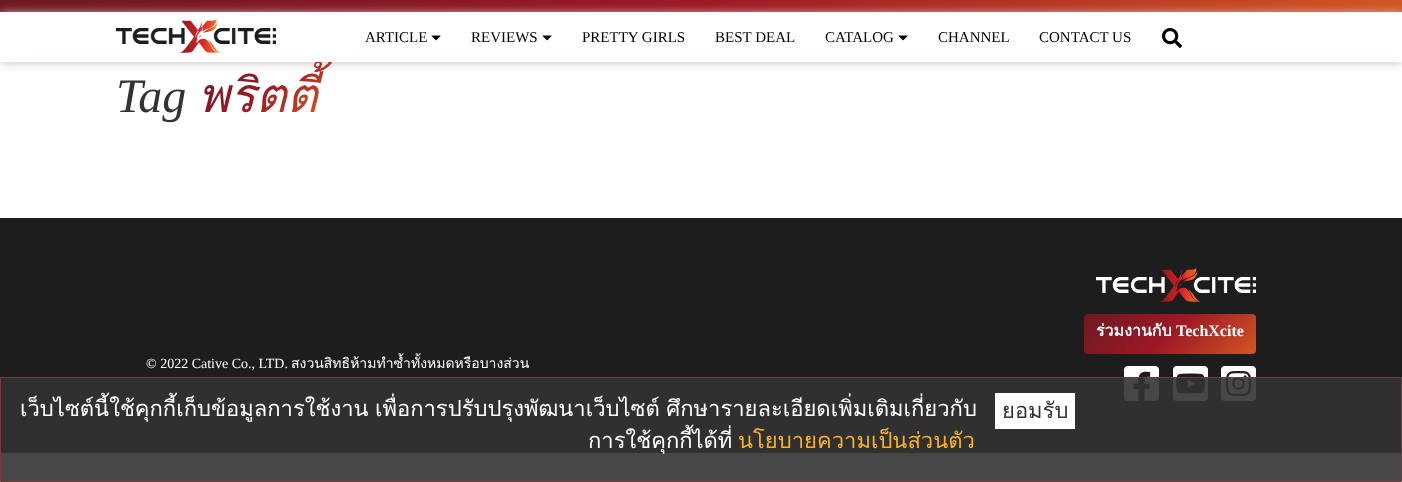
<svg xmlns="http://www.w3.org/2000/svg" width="1402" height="482">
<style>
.a{font:italic 48px Liberation Serif;fill:#333}
.b{font:italic 48px Loma;fill:url(#g1)}
.c{font:15px Liberation Serif;fill:#000}
.d{font:bold 16px Loma;fill:#fff}
.e{font:bold 16px Liberation Serif;fill:#fff}
.f{font:14px Liberation Serif;fill:#fff}
.g{font:14px Loma;fill:#fff}
.h{font:22px Loma;fill:#fff}
.i{font:22px Loma;fill:#fab127}
.j{font:22px Loma;fill:#333}
</style>
<defs>
<linearGradient id="g1" gradientUnits="userSpaceOnUse" x1="216" y1="52" x2="300" y2="139"><stop offset="0" stop-color="#6d1921"/><stop offset="0.5" stop-color="#9e1825"/><stop offset="1" stop-color="#d35622"/></linearGradient>
<linearGradient id="g2" gradientUnits="userSpaceOnUse" x1="348" y1="-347" x2="1055" y2="359"><stop offset="0" stop-color="#6d1921"/><stop offset="0.5" stop-color="#9e1825"/><stop offset="1" stop-color="#d35622"/></linearGradient>
<linearGradient id="g3" gradientUnits="userSpaceOnUse" x1="1117" y1="281" x2="1223" y2="387"><stop offset="0" stop-color="#6d1921"/><stop offset="0.5" stop-color="#9e1825"/><stop offset="1" stop-color="#d35622"/></linearGradient>
</defs>
<rect width="100%" height="100%" fill="#fff"/>
<path fill="url(#g2)" d="M0 0h1402v12H0z"/>
<path fill="#cdc3c3" filter="blur(5px)" d="M1 13h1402v50H1z"/>
<path fill="#1d1d1d" d="M0 218h1402v235H0z"/>
<image href="4.png" x="1096" y="268" width="160" height="34"/>
<rect fill="url(#g3)" x="1084" y="314" width="172" height="40" rx="4"/>
<image href="5.png" x="1124" y="366" width="35" height="35"/>
<image href="6.png" x="1173" y="366" width="35" height="35"/>
<image href="7.png" x="1221" y="366" width="35" height="35"/>
<path fill="#333333e6" stroke="#7a3a3a" d="M0.5 377.5h1401v104H0.5z"/>
<path fill="#fff" d="M995 393h80v36H995z"/>
<text class="a" x="116" y="112">Tag</text>
<text class="b" x="198" y="112">พริตตี้</text>
<path fill="#fff" d="M0 12h1402v50H0z"/>
<image href="3.png" x="1162" y="28" width="20" height="20"/>
<text class="c" x="1039" y="42">CONTACT US</text>
<text class="c" x="938" y="42">CHANNEL</text>
<image href="2.png" x="898" y="35" width="10" height="6"/>
<text class="c" x="825" y="42">CATALOG</text>
<text class="c" x="715" y="42">BEST DEAL</text>
<text class="c" x="582" y="42">PRETTY GIRLS</text>
<image href="2.png" x="542" y="35" width="10" height="6"/>
<text class="c" x="471" y="42">REVIEWS</text>
<image href="2.png" x="431" y="35" width="10" height="6"/>
<text class="c" x="365" y="42">ARTICLE</text>
<image href="1.png" x="116" y="19" width="160" height="34"/>
<text class="d" x="1096" y="336">ร่วมงานกับ</text>
<text class="e" x="1176" y="336">TechXcite</text>
<text class="f" x="146" y="368">© 2022 Cative Co., LTD.</text>
<text class="g" x="291" y="368">สงวนสิทธิห้ามทำซ้ำทั้งหมดหรือบางส่วน</text>
<text class="h" x="20" y="416" word-spacing="-1">เว็บไซต์นี้ใช้คุกกี้เก็บข้อมูลการใช้งาน เพื่อการปรับปรุงพัฒนาเว็บไซต์ ศึกษารายละเอียดเพิ่มเติมเกี่ยวกับ</text>
<text class="h" x="588" y="448">การใช้คุกกี้ได้ที่</text>
<text class="i" x="738" y="448">นโยบายความเป็นส่วนตัว</text>
<text class="j" x="1002" y="418">ยอมรับ</text>
</svg>
